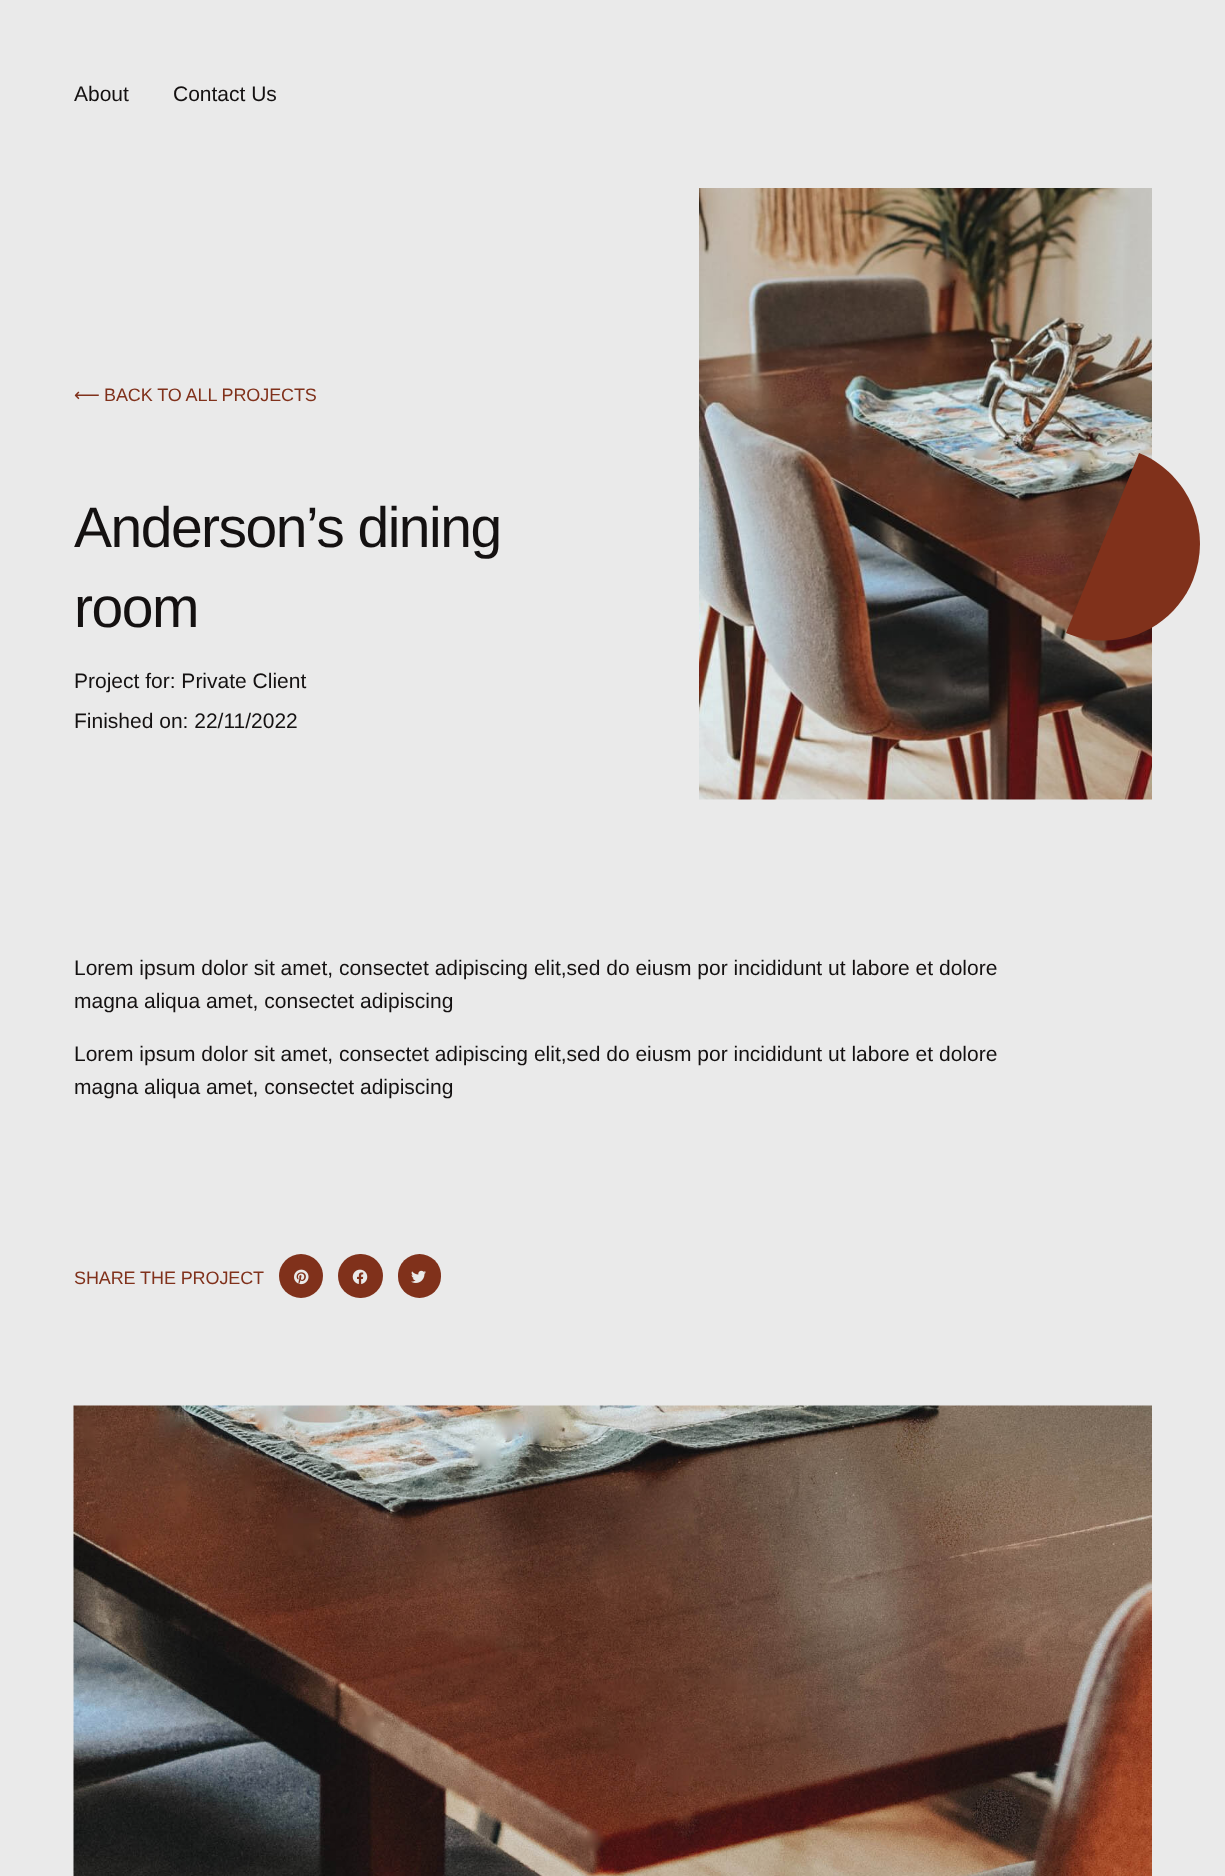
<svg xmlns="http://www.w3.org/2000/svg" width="1225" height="1876">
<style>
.a{font:21px Liberation Sans;fill:#141111}
.b{font:18px DejaVu Sans;letter-spacing:-0.1px;fill:#80311b}
.c{font:18px Liberation Sans;letter-spacing:-0.1px;fill:#80311b}
.d{font:57px Liberation Sans;letter-spacing:-1.5px;fill:#141111}
</style>
<rect width="100%" height="100%" fill="#eaeaea"/>
<image href="1.png" x="699" y="188" width="453" height="612"/>
<path fill="#80311b" d="M1139 453l7 3c45 23 66 76 47 124c-20 50-77 74-127 53z"/>
<circle fill="#80311b" cx="301" cy="1276" r="22"/>
<image href="2.png" x="294" y="1269" width="15" height="16"/>
<rect fill="#80311b" x="338" y="1254" width="45" height="44" rx="22"/>
<image href="3.png" x="352" y="1269" width="16" height="15"/>
<rect fill="#80311b" x="398" y="1254" width="43" height="44" rx="21.5"/>
<image href="4.png" x="411" y="1270" width="15" height="13"/>
<image href="5.png" x="73" y="1405" width="1079" height="471"/>
<text class="a" x="74" y="101">About</text>
<text class="a" x="173" y="101">Contact Us</text>
<text class="b" x="74" y="401">⟵</text>
<text class="c" x="104" y="401">BACK TO ALL PROJECTS</text>
<text class="d" x="74" y="547">Anderson’s dining</text>
<text class="d" x="74" y="627">room</text>
<text class="a" x="74" y="688">Project for: Private Client</text>
<text class="a" x="74" y="728">Finished on: 22/11/2022</text>
<text class="a" x="74" y="975">Lorem ipsum dolor sit amet, consectet adipiscing elit,sed do eiusm por incididunt ut labore et dolore</text>
<text class="a" x="74" y="1008">magna aliqua amet, consectet adipiscing</text>
<text class="a" x="74" y="1061">Lorem ipsum dolor sit amet, consectet adipiscing elit,sed do eiusm por incididunt ut labore et dolore</text>
<text class="a" x="74" y="1094">magna aliqua amet, consectet adipiscing</text>
<text class="c" x="74" y="1284">SHARE THE PROJECT</text>
</svg>
